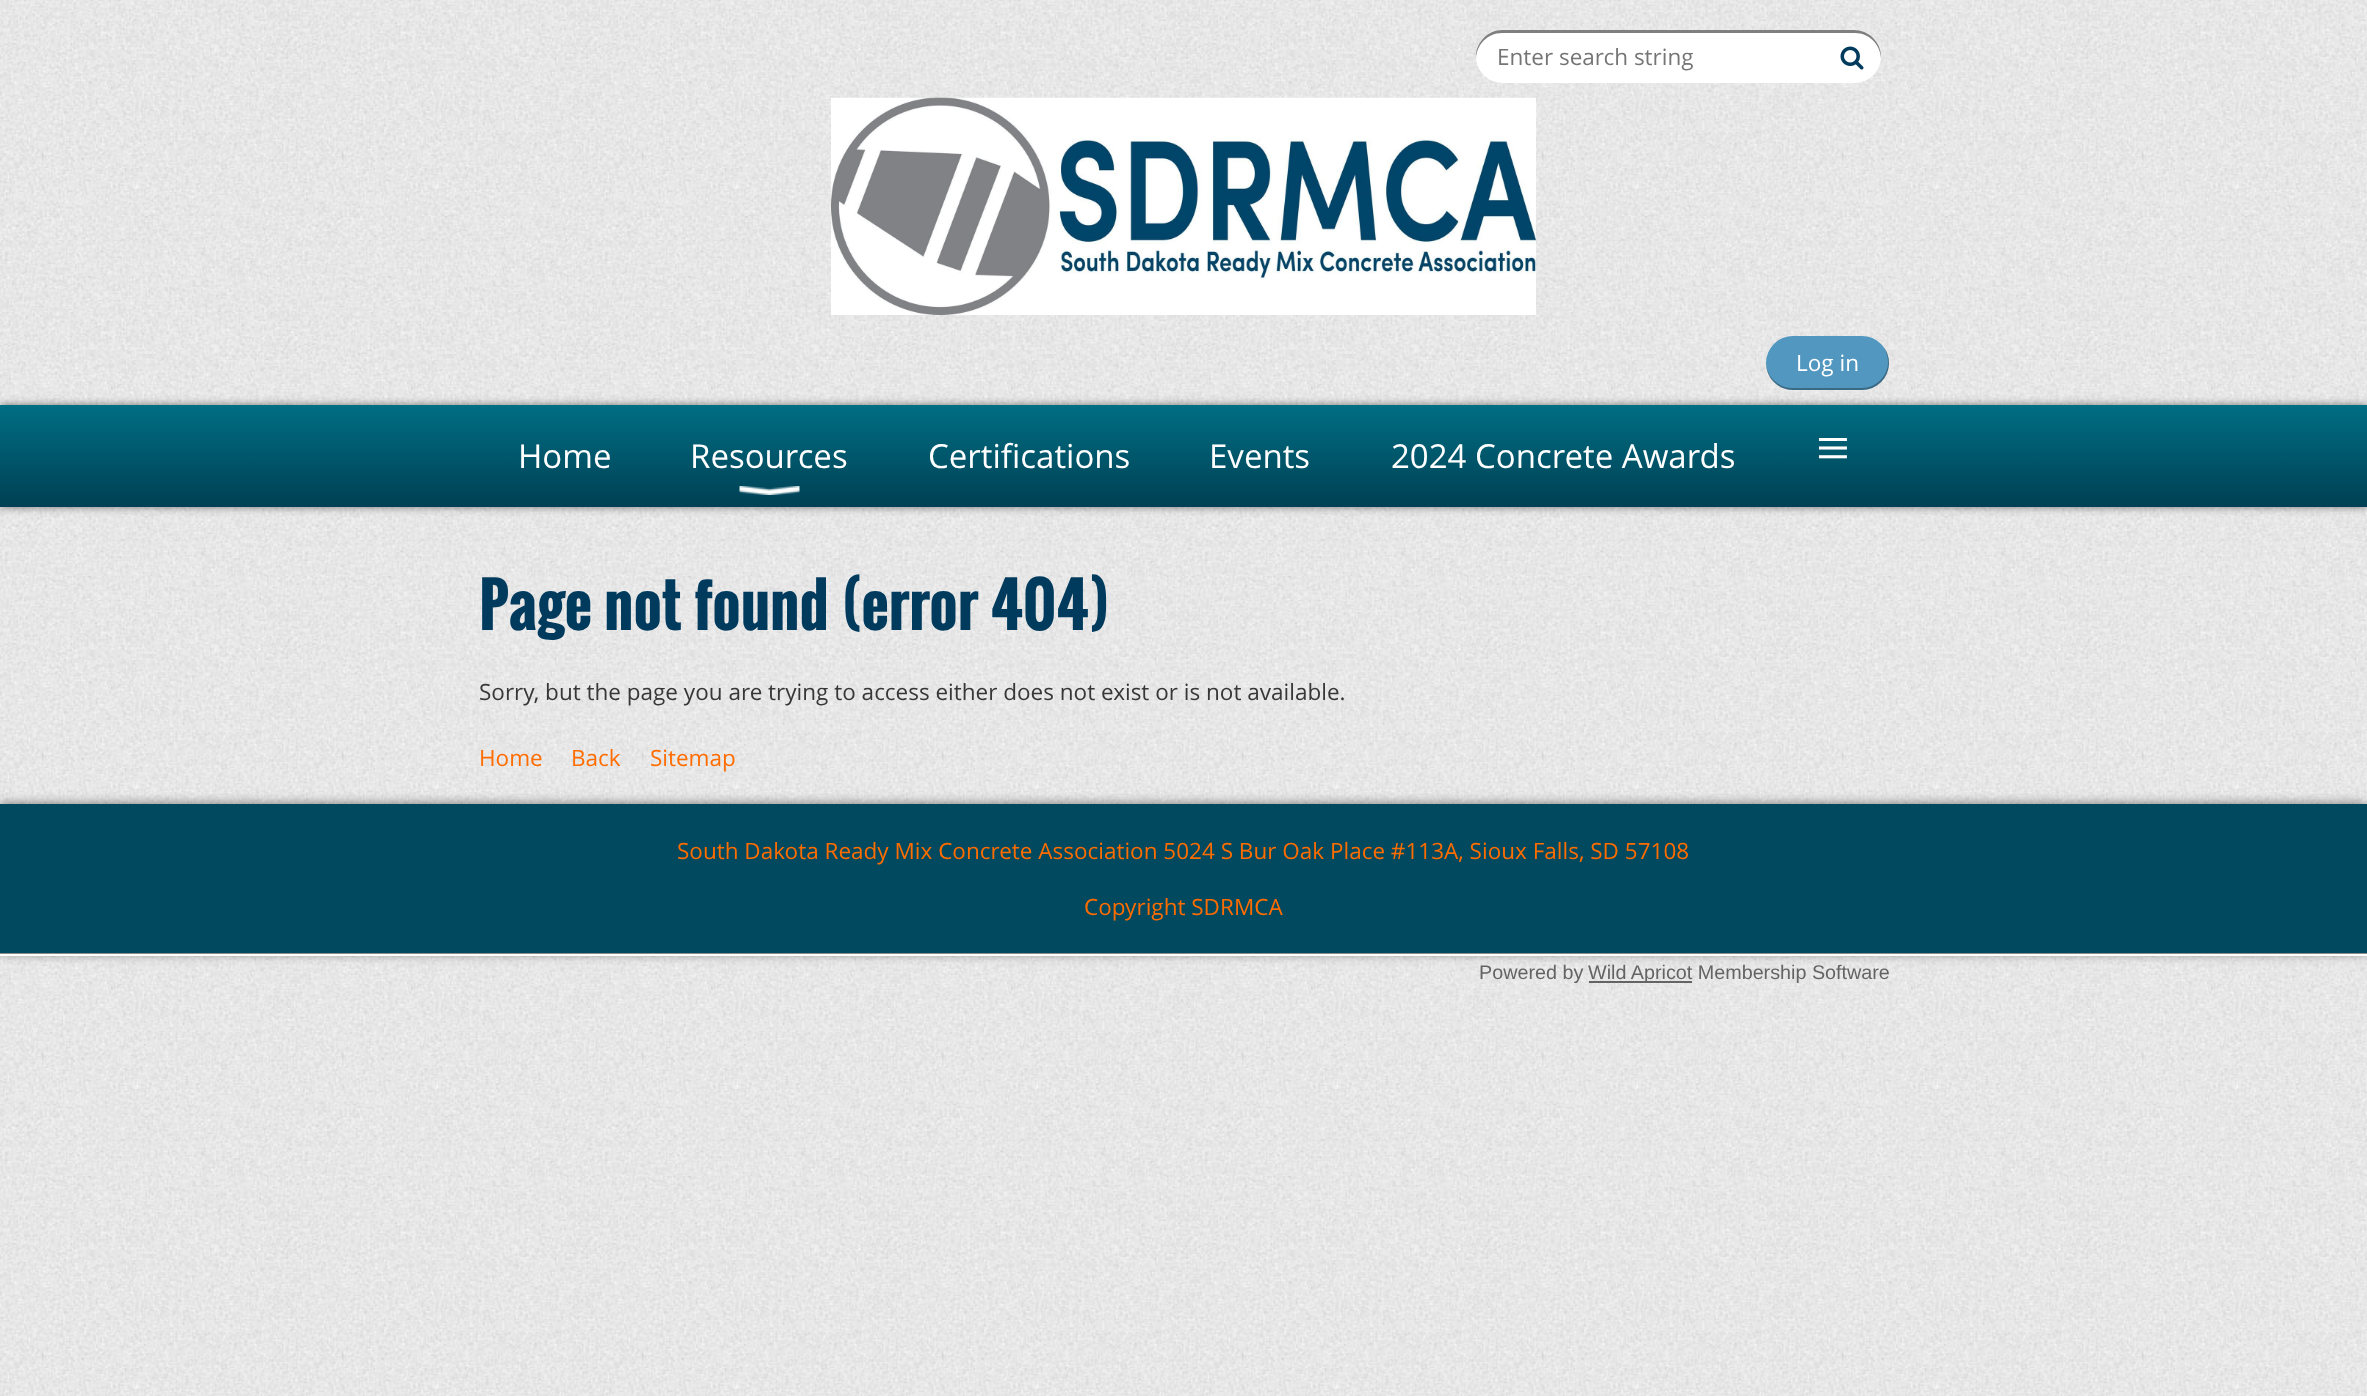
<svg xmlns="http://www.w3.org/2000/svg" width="2367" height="1396">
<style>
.a{font:22.5px Open Sans;fill:#757575}
.b{font:22.5px Open Sans;fill:#fff}
.c{font:33px Open Sans;fill:#fff}
.d{font:60px Liberation Serif;fill:#fff}
.e{font:bold 60px Oswald;fill:#003a5c}
.f{font:22.5px Open Sans;fill:#373737}
.g{font:22.5px Open Sans;fill:#ff6c00}
.h{font:19.75px Liberation Sans;fill:#646464}
</style>
<defs>
<linearGradient id="g1" gradientUnits="userSpaceOnUse" x1="1184" y1="405" x2="1184" y2="507"><stop offset="0" stop-color="#006e83"/><stop offset="1" stop-color="#004054"/></linearGradient>
</defs>
<rect width="100%" height="100%" fill="#fff"/>
<image href="1.png" x="0" y="0" width="2367" height="1396"/>
<rect fill="#fff" x="1476" y="30" width="405" height="53" rx="26.5"/>
<path fill="#00000080" d="M1502 33h353c14 0 25 11 26 25c1-15-12-28-27-28h-352c-14 0-27 13-26 28c1-14 12-25 26-25z"/>
<image href="2.png" x="1840" y="46" width="24" height="24"/>
<image href="3.png" x="831" y="97" width="705" height="218"/>
<rect fill="#5297bf" x="1766" y="336" width="123" height="54" rx="27"/>
<path fill="#0000004d" d="M1766 362v1c0 15 12 27 27 27h69c15 0 27-12 27-27c0-6-2-12-5-16c2 4 4 10 4 15c0 14-12 26-26 26h-70c-14 0-26-12-26-26z"/>
<path fill="#00000080" filter="blur(4.5px)" d="M0 405h2367v102H0z"/>
<path fill="url(#g1)" d="M0 405h2367v102H0z"/>
<image href="4.png" x="739" y="486" width="61" height="9"/>
<path fill="#00000080" filter="blur(6px)" d="M0 804h2367v149H0z"/>
<path fill="#00495e" d="M0 804h2367v149H0z"/>
<path fill="#8d8d8d" d="M0 953h2367v1H0z"/>
<path fill="#fff" d="M0 954h2367v2H0z"/>
<path fill="#646464" d="M1589 981h103v2H1589z"/>
<text class="a" x="1497" y="65">Enter search string</text>
<text class="b" x="1796" y="371">Log in</text>
<text class="c" x="518" y="468">Home</text>
<text class="c" x="690" y="468">Resources</text>
<text class="c" x="928" y="468">Certifications</text>
<text class="c" x="1209" y="468">Events</text>
<text class="c" x="1391" y="468">2024 Concrete Awards</text>
<text class="d" x="1816" y="468">≡</text>
<text class="e" x="479" y="630">Page not found (error 404)</text>
<text class="f" x="479" y="700">Sorry, but the page you are trying to access either does not exist or is not available.</text>
<text class="g" x="479" y="766">Home</text>
<text class="g" x="571" y="766">Back</text>
<text class="g" x="650" y="766">Sitemap</text>
<text class="g" x="677" y="859">South Dakota Ready Mix Concrete Association 5024 S Bur Oak Place #113A, Sioux Falls, SD 57108</text>
<text class="g" x="1084" y="915">Copyright SDRMCA</text>
<text class="h" x="1479" y="979">Powered by</text>
<text class="h" x="1588" y="979">Wild Apricot Membership Software</text>
</svg>
